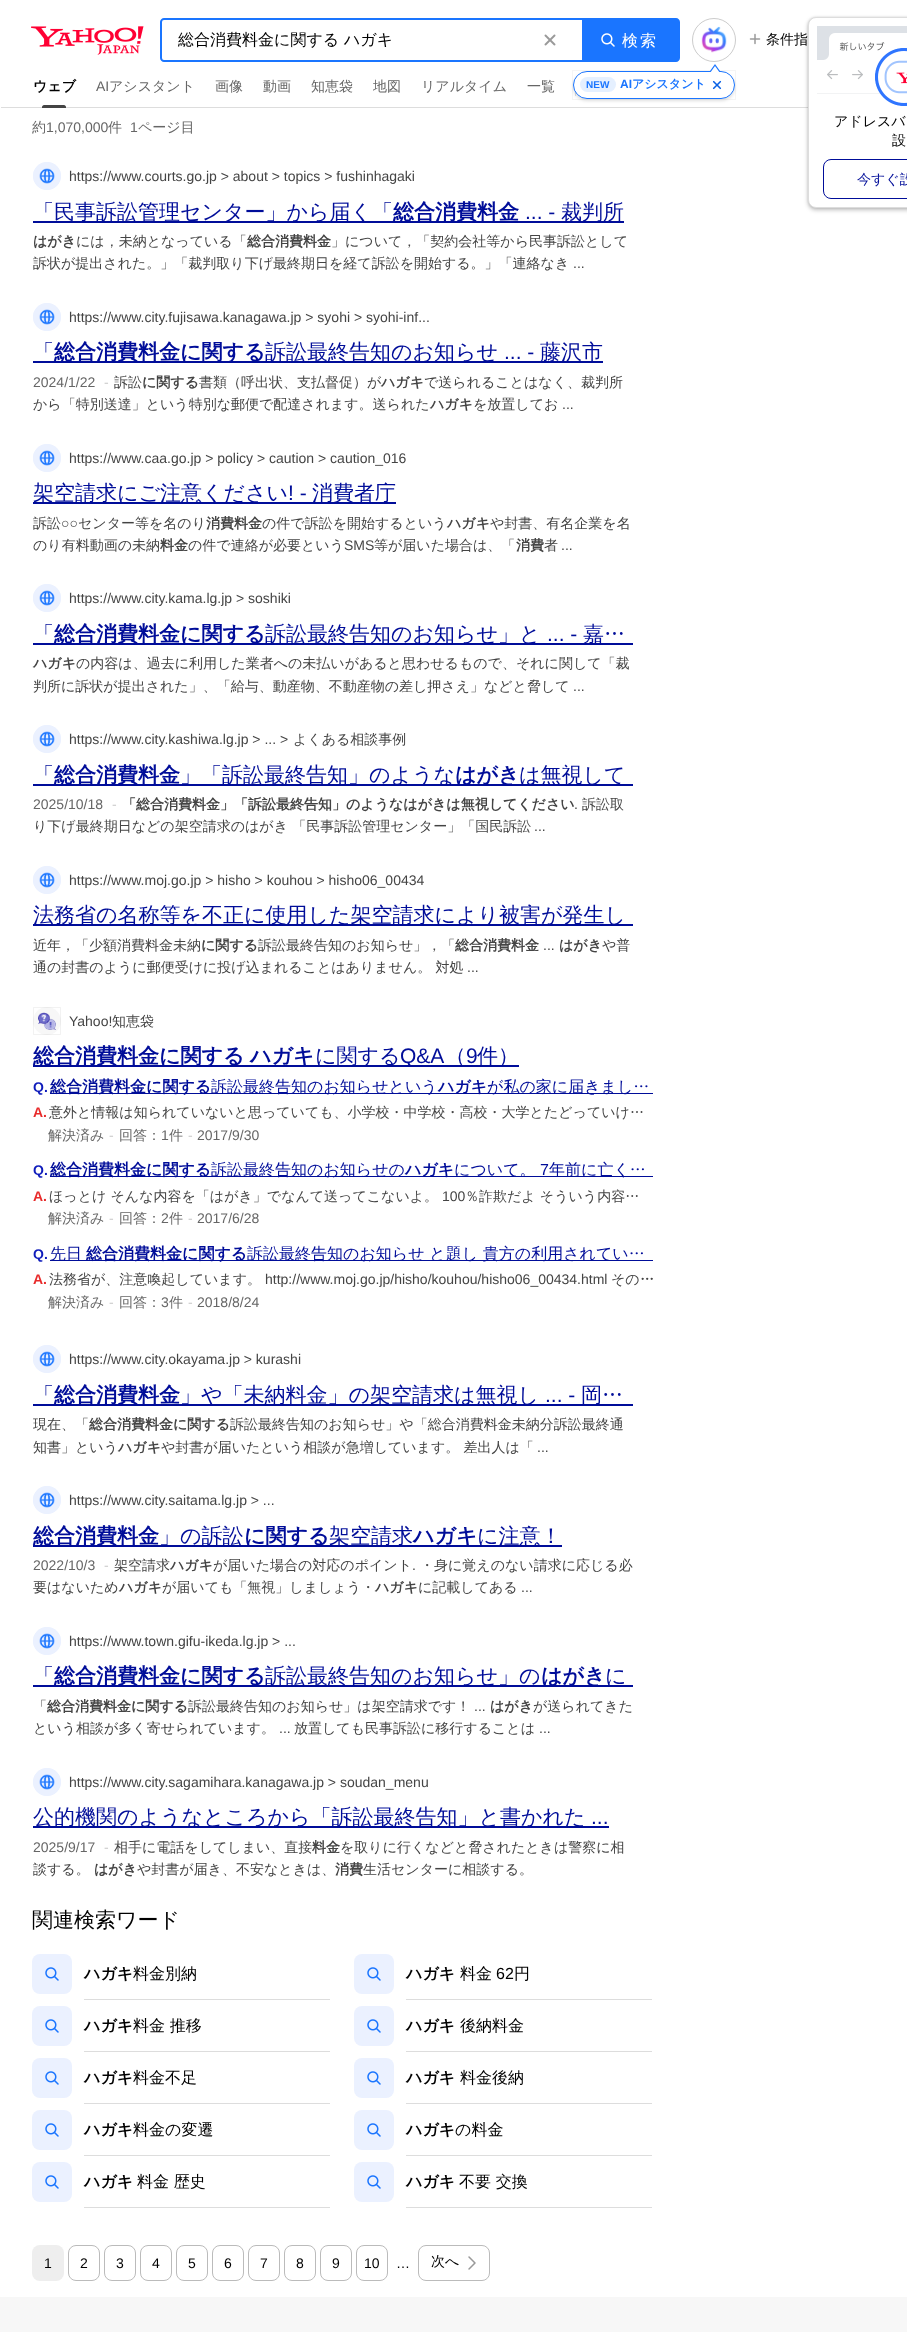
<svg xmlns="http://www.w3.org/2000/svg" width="907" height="2332">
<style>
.a{font:500 16px WenQuanYi Zen Hei;fill:#000}
.b{font:500 16px WenQuanYi Zen Hei;letter-spacing:2px;fill:#fff}
.c{font:500 14px WenQuanYi Zen Hei;fill:#000}
.d{font:bold 10px Liberation Sans;fill:#1a75ff}
.e{font:bold 12px Liberation Sans;fill:#1a75ff}
.f{font:bold 12px WenQuanYi Zen Hei;fill:#1a75ff}
.g{font:500 14px WenQuanYi Zen Hei;fill:#000d99}
.h{font:bold 14px WenQuanYi Zen Hei;fill:#000}
.i{font:14px Liberation Sans;fill:#666}
.j{font:500 14px WenQuanYi Zen Hei;fill:#666}
.k{font:14px Liberation Sans;fill:#444}
.l{font:500 21px WenQuanYi Zen Hei;fill:#000d99}
.m{font:bold 21px WenQuanYi Zen Hei;fill:#000d99}
.n{font:21px Liberation Sans;fill:#000d99}
.o{font:bold 14px WenQuanYi Zen Hei;fill:#444}
.p{font:500 14px WenQuanYi Zen Hei;fill:#444}
.q{font:14px Liberation Sans;fill:#ccc}
.r{font:bold 14px Liberation Sans;fill:#0e1bbb}
.s{font:bold 16px WenQuanYi Zen Hei;fill:#000d99}
.t{font:500 16px WenQuanYi Zen Hei;fill:#000d99}
.u{font:bold 14px Liberation Sans;fill:#e82a2a}
.v{font:16px Liberation Sans;fill:#000d99}
.w{font:500 21px WenQuanYi Zen Hei;fill:#000}
.x{font:bold 16px WenQuanYi Zen Hei;fill:#000}
.y{font:16px Liberation Sans;fill:#000}
.z{font:14px Liberation Sans;fill:#000}
</style>
<rect width="100%" height="100%" fill="#fff"/>
<path fill="#ddd" d="M1 107h807v1H1z"/>
<path fill="none" stroke="#1a75ff" stroke-width="2" d="M164 19h419v42h-419c-1.5 0-3-1.5-3-3v-36c0-1.5 1.5-3 3-3z"/>
<image href="1.png" x="544" y="34" width="12" height="12"/>
<path fill="#1a75ff" d="M584 18h92c2 0 4 2 4 4v36c0 2-2 4-4 4h-92z"/>
<image href="2.png" x="601" y="33" width="14" height="14"/>
<image href="3.png" x="749" y="33" width="12" height="12"/>
<circle fill="none" stroke="#ccc" cx="714" cy="40" r="21.5"/>
<image href="4.png" x="701" y="26" width="26" height="27"/>
<path fill="#ddd" d="M575 92h1v4H575z"/>
<rect fill="#0000001f" filter="blur(1.5px)" x="573" y="73" width="162" height="28" rx="14"/>
<path fill="none" stroke="#0000000a" d="M572.5 70.5h163v29H572.5z"/>
<rect fill="#fff" stroke="#1a75ff" x="573.5" y="71.5" width="161" height="27" rx="13.5"/>
<path fill="#1a75ff" d="M720 71h-10l5-7z"/>
<path fill="#fff" d="M720 73h-10l5-7z"/>
<rect fill="#e5f0ff" x="580" y="77" width="36" height="15" rx="7.5"/>
<image href="5.png" x="712" y="80" width="10" height="10"/>
<image href="6.png" x="31" y="26" width="113" height="29"/>
<rect fill="#0000001a" filter="blur(1px)" x="808" y="17" width="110" height="191" rx="8"/>
<rect fill="#00000040" filter="blur(2px)" x="808" y="19" width="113" height="191" rx="8"/>
<rect fill="#fff" stroke="#ddd" x="808.5" y="17.5" width="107" height="190" rx="7.5"/>
<image href="7.png" x="817" y="26" width="90" height="80"/>
<rect fill="none" stroke="#000d99" x="823.5" y="159.5" width="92" height="39" rx="7.5"/>
<path fill="#444" d="M44 105h20c1 0 2 1 2 2v1h-24v-1c0-1 1-2 2-2z"/>
<circle fill="#ebf1ff" cx="47" cy="176" r="14"/>
<image href="8.png" x="39" y="168" width="16" height="16"/>
<circle fill="none" stroke="#ebf1ff" cx="47" cy="176" r="13.5"/>
<path fill="#000d99" d="M33 221h591v2H33z"/>
<circle fill="#ebf1ff" cx="47" cy="317" r="14"/>
<image href="8.png" x="39" y="309" width="16" height="16"/>
<circle fill="none" stroke="#ebf1ff" cx="47" cy="317" r="13.5"/>
<path fill="#000d99" d="M33 361h570v2H33z"/>
<circle fill="#ebf1ff" cx="47" cy="458" r="14"/>
<image href="8.png" x="39" y="450" width="16" height="16"/>
<circle fill="none" stroke="#ebf1ff" cx="47" cy="458" r="13.5"/>
<path fill="#000d99" d="M33 502h363v2H33z"/>
<circle fill="#ebf1ff" cx="47" cy="598" r="14"/>
<image href="8.png" x="39" y="590" width="16" height="16"/>
<circle fill="none" stroke="#ebf1ff" cx="47" cy="598" r="13.5"/>
<path fill="#000d99" d="M33 643h600v2H33z"/>
<circle fill="#ebf1ff" cx="47" cy="739" r="14"/>
<image href="8.png" x="39" y="731" width="16" height="16"/>
<circle fill="none" stroke="#ebf1ff" cx="47" cy="739" r="13.5"/>
<path fill="#000d99" d="M33 784h600v2H33z"/>
<circle fill="#ebf1ff" cx="47" cy="880" r="14"/>
<image href="8.png" x="39" y="872" width="16" height="16"/>
<circle fill="none" stroke="#ebf1ff" cx="47" cy="880" r="13.5"/>
<path fill="#000d99" d="M33 924h600v2H33z"/>
<circle fill="#f7f7f7" cx="47" cy="1021" r="14"/>
<path fill="none" stroke="#0000000d" d="M33.5 1007.5h27v27H33.5z"/>
<image href="9.png" x="38" y="1012" width="18" height="18"/>
<path fill="#000d99" d="M33 1065h486v2H33z"/>
<path fill="#000d99" d="M50 1093h603v1H50z"/>
<path fill="#000d99" d="M50 1176h603v1H50z"/>
<path fill="#000d99" d="M50 1260h603v1H50z"/>
<circle fill="#ebf1ff" cx="47" cy="1359" r="14"/>
<image href="8.png" x="39" y="1351" width="16" height="16"/>
<circle fill="none" stroke="#ebf1ff" cx="47" cy="1359" r="13.5"/>
<path fill="#000d99" d="M33 1404h600v2H33z"/>
<circle fill="#ebf1ff" cx="47" cy="1500" r="14"/>
<image href="8.png" x="39" y="1492" width="16" height="16"/>
<circle fill="none" stroke="#ebf1ff" cx="47" cy="1500" r="13.5"/>
<path fill="#000d99" d="M33 1545h529v2H33z"/>
<circle fill="#ebf1ff" cx="47" cy="1641" r="14"/>
<image href="8.png" x="39" y="1633" width="16" height="16"/>
<circle fill="none" stroke="#ebf1ff" cx="47" cy="1641" r="13.5"/>
<path fill="#000d99" d="M33 1685h600v2H33z"/>
<circle fill="#ebf1ff" cx="47" cy="1782" r="14"/>
<image href="8.png" x="39" y="1774" width="16" height="16"/>
<circle fill="none" stroke="#ebf1ff" cx="47" cy="1782" r="13.5"/>
<path fill="#000d99" d="M33 1826h576v2H33z"/>
<rect fill="#ebf1ff" x="32" y="1954" width="40" height="40" rx="8"/>
<image href="10.png" x="45" y="1967" width="14" height="14"/>
<path fill="#ddd" d="M84 1999h246v1H84z"/>
<rect fill="#ebf1ff" x="354" y="1954" width="40" height="40" rx="8"/>
<image href="10.png" x="367" y="1967" width="14" height="14"/>
<path fill="#ddd" d="M406 1999h246v1H406z"/>
<rect fill="#ebf1ff" x="32" y="2006" width="40" height="40" rx="8"/>
<image href="10.png" x="45" y="2019" width="14" height="14"/>
<path fill="#ddd" d="M84 2051h246v1H84z"/>
<rect fill="#ebf1ff" x="354" y="2006" width="40" height="40" rx="8"/>
<image href="10.png" x="367" y="2019" width="14" height="14"/>
<path fill="#ddd" d="M406 2051h246v1H406z"/>
<rect fill="#ebf1ff" x="32" y="2058" width="40" height="40" rx="8"/>
<image href="10.png" x="45" y="2071" width="14" height="14"/>
<path fill="#ddd" d="M84 2103h246v1H84z"/>
<rect fill="#ebf1ff" x="354" y="2058" width="40" height="40" rx="8"/>
<image href="10.png" x="367" y="2071" width="14" height="14"/>
<path fill="#ddd" d="M406 2103h246v1H406z"/>
<rect fill="#ebf1ff" x="32" y="2110" width="40" height="40" rx="8"/>
<image href="10.png" x="45" y="2123" width="14" height="14"/>
<path fill="#ddd" d="M84 2155h246v1H84z"/>
<rect fill="#ebf1ff" x="354" y="2110" width="40" height="40" rx="8"/>
<image href="10.png" x="367" y="2123" width="14" height="14"/>
<path fill="#ddd" d="M406 2155h246v1H406z"/>
<rect fill="#ebf1ff" x="32" y="2162" width="40" height="40" rx="8"/>
<image href="10.png" x="45" y="2175" width="14" height="14"/>
<path fill="#ddd" d="M84 2207h246v1H84z"/>
<rect fill="#ebf1ff" x="354" y="2162" width="40" height="40" rx="8"/>
<image href="10.png" x="367" y="2175" width="14" height="14"/>
<path fill="#ddd" d="M406 2207h246v1H406z"/>
<rect fill="#eee" x="32" y="2245" width="32" height="36" rx="8"/>
<rect fill="none" stroke="#bbb" x="68.5" y="2245.5" width="31" height="35" rx="7.5"/>
<rect fill="none" stroke="#bbb" x="104.5" y="2245.5" width="31" height="35" rx="7.5"/>
<rect fill="none" stroke="#bbb" x="140.5" y="2245.5" width="31" height="35" rx="7.5"/>
<rect fill="none" stroke="#bbb" x="176.5" y="2245.5" width="31" height="35" rx="7.5"/>
<rect fill="none" stroke="#bbb" x="212.5" y="2245.5" width="31" height="35" rx="7.5"/>
<rect fill="none" stroke="#bbb" x="248.5" y="2245.5" width="31" height="35" rx="7.5"/>
<rect fill="none" stroke="#bbb" x="284.5" y="2245.5" width="31" height="35" rx="7.5"/>
<rect fill="none" stroke="#bbb" x="320.5" y="2245.5" width="31" height="35" rx="7.5"/>
<rect fill="none" stroke="#bbb" x="356.5" y="2245.5" width="31" height="35" rx="7.5"/>
<image href="11.png" x="468" y="2256" width="8" height="14"/>
<rect fill="none" stroke="#bbb" x="418.5" y="2245.5" width="71" height="35" rx="7.5"/>
<path fill="#f7f7f7" d="M0 2297h907v35H0z"/>
<text class="a" x="178" y="45">総合消費料金に関する ハガキ</text>
<text class="b" x="622" y="46">検索</text>
<text class="c" x="766" y="44">条件指</text>
<text class="d" x="586" y="88">NEW</text>
<text class="e" x="620" y="88">AI</text>
<text class="f" x="632" y="88">アシスタント</text>
<text class="c" x="834" y="126">アドレスバ</text>
<text class="c" x="892" y="145">設</text>
<text class="g" x="857" y="184">今すぐ設</text>
<text class="h" x="33" y="91">ウェブ</text>
<text class="i" x="96" y="91">AI</text>
<text class="j" x="109" y="91">アシスタント</text>
<text class="j" x="215" y="91">画像</text>
<text class="j" x="263" y="91">動画</text>
<text class="j" x="311" y="91">知恵袋</text>
<text class="j" x="373" y="91">地図</text>
<text class="j" x="421" y="91">リアルタイム</text>
<text class="j" x="527" y="91">一覧</text>
<text class="j" x="32" y="132">約</text>
<text class="i" x="46" y="132">1,070,000</text>
<text class="j" x="108" y="132">件</text>
<text class="i" x="130" y="132">1</text>
<text class="j" x="138" y="132">ページ目</text>
<text class="k" x="69" y="181">https://www.courts.go.jp &gt; about &gt; topics &gt; fushinhagaki</text>
<text class="l" x="33" y="219">「民事訴訟管理センター」から届く「</text>
<text class="m" x="393" y="219">総合消費料金</text>
<text class="n" x="525" y="219">... -</text>
<text class="l" x="561" y="219">裁判所</text>
<text class="o" x="33" y="246">はがき</text>
<text class="p" x="76" y="246">には，未納となっている「</text>
<text class="o" x="247" y="246">総合消費料金</text>
<text class="p" x="331" y="246">」について，「契約会社等から民事訴訟として</text>
<text class="p" x="33" y="268">訴状が提出された。」「裁判取り下げ最終期日を経て訴訟を開始する。」「連絡なき</text>
<text class="k" x="573" y="268">...</text>
<text class="k" x="69" y="322">https://www.city.fujisawa.kanagawa.jp &gt; syohi &gt; syohi-inf...</text>
<text class="l" x="33" y="359">「</text>
<text class="m" x="54" y="359">総合消費料金に関する</text>
<text class="l" x="265" y="359">訴訟最終告知のお知らせ</text>
<text class="n" x="504" y="359">... -</text>
<text class="l" x="540" y="359">藤沢市</text>
<text class="i" x="33" y="387">2024/1/22</text>
<text class="q" x="104" y="387">-</text>
<text class="p" x="114" y="387">訴訟</text>
<text class="o" x="142" y="387">に関する</text>
<text class="p" x="199" y="387">書類（呼出状、支払督促）が</text>
<text class="o" x="381" y="387">ハガキ</text>
<text class="p" x="424" y="387">で送られることはなく、裁判所</text>
<text class="p" x="33" y="409">から「特別送達」という特別な郵便で配達されます。送られた</text>
<text class="o" x="430" y="409">ハガキ</text>
<text class="p" x="473" y="409">を放置してお</text>
<text class="k" x="562" y="409">...</text>
<text class="k" x="69" y="463">https://www.caa.go.jp &gt; policy &gt; caution &gt; caution_016</text>
<text class="l" x="33" y="500">架空請求にご注意ください</text>
<text class="n" x="288" y="500">! -</text>
<text class="l" x="312" y="500">消費者庁</text>
<text class="p" x="33" y="528">訴訟</text>
<text class="k" x="61" y="528">○○</text>
<text class="p" x="78" y="528">センター等を名のり</text>
<text class="o" x="206" y="528">消費料金</text>
<text class="p" x="262" y="528">の件で訴訟を開始するという</text>
<text class="o" x="447" y="528">ハガキ</text>
<text class="p" x="490" y="528">や封書、有名企業を名</text>
<text class="p" x="33" y="550">のり有料動画の未納</text>
<text class="o" x="160" y="550">料金</text>
<text class="p" x="188" y="550">の件で連絡が必要という</text>
<text class="k" x="344" y="550">SMS</text>
<text class="p" x="374" y="550">等が届いた場合は、「</text>
<text class="o" x="516" y="550">消費</text>
<text class="p" x="544" y="550">者</text>
<text class="k" x="561" y="550">...</text>
<text class="k" x="69" y="603">https://www.city.kama.lg.jp &gt; soshiki</text>
<text class="l" x="33" y="641">「</text>
<text class="m" x="54" y="641">総合消費料金に関する</text>
<text class="l" x="265" y="641">訴訟最終告知のお知らせ」と</text>
<text class="n" x="547" y="641">... -</text>
<text class="l" x="583" y="641">嘉…</text>
<text class="o" x="33" y="668">ハガキ</text>
<text class="p" x="76" y="668">の内容は、過去に利用した業者への未払いがあると思わせるもので、それに関して「裁</text>
<text class="p" x="33" y="691">判所に訴状が提出された」、「給与、動産物、不動産物の差し押さえ」などと脅して</text>
<text class="k" x="573" y="691">...</text>
<text class="k" x="69" y="744">https://www.city.kashiwa.lg.jp &gt; ... &gt;</text>
<text class="p" x="293" y="744">よくある相談事例</text>
<text class="l" x="33" y="782">「</text>
<text class="m" x="54" y="782">総合消費料金</text>
<text class="l" x="180" y="782">」「訴訟最終告知」のような</text>
<text class="m" x="455" y="782">はがき</text>
<text class="l" x="519" y="782">は無視して</text>
<text class="i" x="33" y="809">2025/10/18</text>
<text class="q" x="112" y="809">-</text>
<text class="o" x="122" y="809">「総合消費料金」「訴訟最終告知」のようなはがきは無視してください</text>
<text class="p" x="582" y="809">訴訟取</text>
<text class="k" x="574" y="809">.</text>
<text class="p" x="33" y="831">り下げ最終期日などの架空請求のはがき 「民事訴訟管理センター」「国民訴訟</text>
<text class="k" x="534" y="831">...</text>
<text class="k" x="69" y="885">https://www.moj.go.jp &gt; hisho &gt; kouhou &gt; hisho06_00434</text>
<text class="l" x="33" y="922">法務省の名称等を不正に使用した架空請求により被害が発生し</text>
<text class="p" x="33" y="950">近年，「少額消費料金未納</text>
<text class="o" x="201" y="950">に関する</text>
<text class="p" x="258" y="950">訴訟最終告知のお知らせ」，「</text>
<text class="o" x="455" y="950">総合消費料金</text>
<text class="k" x="543" y="950">...</text>
<text class="o" x="559" y="950">はがき</text>
<text class="p" x="602" y="950">や普</text>
<text class="p" x="33" y="972">通の封書のように郵便受けに投げ込まれることはありません。 対処</text>
<text class="k" x="467" y="972">...</text>
<text class="k" x="69" y="1026">Yahoo!</text>
<text class="p" x="112" y="1026">知恵袋</text>
<text class="m" x="33" y="1063">総合消費料金に関する</text>
<text class="m" x="250" y="1063">ハガキ</text>
<text class="l" x="315" y="1063">に関する</text>
<text class="n" x="400" y="1063">Q&amp;A</text>
<text class="l" x="445" y="1063">（</text>
<text class="n" x="466" y="1063">9</text>
<text class="l" x="477" y="1063">件）</text>
<text class="r" x="33" y="1092">Q.</text>
<text class="s" x="50" y="1092">総合消費料金に関する</text>
<text class="t" x="211" y="1092">訴訟最終告知のお知らせという</text>
<text class="s" x="438" y="1092">ハガキ</text>
<text class="t" x="487" y="1092">が私の家に届きまし…</text>
<text class="u" x="33" y="1117">A.</text>
<text class="p" x="49" y="1117">意外と情報は知られていないと思っていても、小学校・中学校・高校・大学とたどっていけ…</text>
<text class="j" x="48" y="1140">解決済み</text>
<text class="q" x="109" y="1140">-</text>
<text class="j" x="119" y="1140">回答：</text>
<text class="i" x="161" y="1140">1</text>
<text class="j" x="169" y="1140">件</text>
<text class="q" x="188" y="1140">-</text>
<text class="i" x="197" y="1140">2017/9/30</text>
<text class="r" x="33" y="1175">Q.</text>
<text class="s" x="50" y="1175">総合消費料金に関する</text>
<text class="t" x="211" y="1175">訴訟最終告知のお知らせの</text>
<text class="s" x="405" y="1175">ハガキ</text>
<text class="t" x="454" y="1175">について。</text>
<text class="v" x="540" y="1175">7</text>
<text class="t" x="549" y="1175">年前に亡く…</text>
<text class="u" x="33" y="1201">A.</text>
<text class="p" x="49" y="1201">ほっとけ そんな内容を「はがき」でなんて送ってこないよ。</text>
<text class="k" x="442" y="1201">100</text>
<text class="p" x="465" y="1201">％詐欺だよ そういう内容…</text>
<text class="j" x="48" y="1223">解決済み</text>
<text class="q" x="109" y="1223">-</text>
<text class="j" x="119" y="1223">回答：</text>
<text class="i" x="161" y="1223">2</text>
<text class="j" x="169" y="1223">件</text>
<text class="q" x="188" y="1223">-</text>
<text class="i" x="197" y="1223">2017/6/28</text>
<text class="r" x="33" y="1259">Q.</text>
<text class="t" x="50" y="1259">先日</text>
<text class="s" x="86" y="1259">総合消費料金に関する</text>
<text class="t" x="247" y="1259">訴訟最終告知のお知らせ と題し 貴方の利用されてい…</text>
<text class="u" x="33" y="1284">A.</text>
<text class="p" x="49" y="1284">法務省が、注意喚起しています。</text>
<text class="k" x="265" y="1284">http://www.moj.go.jp/hisho/kouhou/hisho06_00434.html</text>
<text class="p" x="611" y="1284">その</text>
<text class="o" x="640" y="1284">…</text>
<text class="j" x="48" y="1307">解決済み</text>
<text class="q" x="109" y="1307">-</text>
<text class="j" x="119" y="1307">回答：</text>
<text class="i" x="161" y="1307">3</text>
<text class="j" x="169" y="1307">件</text>
<text class="q" x="188" y="1307">-</text>
<text class="i" x="197" y="1307">2018/8/24</text>
<text class="k" x="69" y="1364">https://www.city.okayama.jp &gt; kurashi</text>
<text class="l" x="33" y="1402">「</text>
<text class="m" x="54" y="1402">総合消費料金</text>
<text class="l" x="180" y="1402">」や「未納料金」の架空請求は無視し</text>
<text class="n" x="545" y="1402">... -</text>
<text class="l" x="581" y="1402">岡…</text>
<text class="p" x="33" y="1429">現在、「</text>
<text class="o" x="89" y="1429">総合消費料金に関する</text>
<text class="p" x="230" y="1429">訴訟最終告知のお知らせ」や「総合消費料金未納分訴訟最終通</text>
<text class="p" x="33" y="1452">知書」という</text>
<text class="o" x="118" y="1452">ハガキ</text>
<text class="p" x="161" y="1452">や封書が届いたという相談が急増しています。 差出人は「</text>
<text class="k" x="537" y="1452">...</text>
<text class="k" x="69" y="1505">https://www.city.saitama.lg.jp &gt; ...</text>
<text class="m" x="33" y="1543">総合消費料金</text>
<text class="l" x="159" y="1543">」の訴訟</text>
<text class="m" x="244" y="1543">に関する</text>
<text class="l" x="329" y="1543">架空請求</text>
<text class="m" x="413" y="1543">ハガキ</text>
<text class="l" x="477" y="1543">に注意！</text>
<text class="i" x="33" y="1570">2022/10/3</text>
<text class="q" x="104" y="1570">-</text>
<text class="p" x="114" y="1570">架空請求</text>
<text class="o" x="170" y="1570">ハガキ</text>
<text class="p" x="213" y="1570">が届いた場合の対応のポイント</text>
<text class="p" x="420" y="1570">・身に覚えのない請求に応じる必</text>
<text class="k" x="412" y="1570">.</text>
<text class="p" x="33" y="1592">要はないため</text>
<text class="o" x="119" y="1592">ハガキ</text>
<text class="p" x="162" y="1592">が届いても「無視」しましょう・</text>
<text class="o" x="375" y="1592">ハガキ</text>
<text class="p" x="418" y="1592">に記載してある</text>
<text class="k" x="521" y="1592">...</text>
<text class="k" x="69" y="1646">https://www.town.gifu-ikeda.lg.jp &gt; ...</text>
<text class="l" x="33" y="1683">「</text>
<text class="m" x="54" y="1683">総合消費料金に関する</text>
<text class="l" x="265" y="1683">訴訟最終告知のお知らせ」の</text>
<text class="m" x="541" y="1683">はがき</text>
<text class="l" x="605" y="1683">に</text>
<text class="p" x="33" y="1711">「</text>
<text class="o" x="47" y="1711">総合消費料金に関する</text>
<text class="p" x="188" y="1711">訴訟最終告知のお知らせ」は架空請求です！</text>
<text class="k" x="474" y="1711">...</text>
<text class="o" x="490" y="1711">はがき</text>
<text class="p" x="533" y="1711">が送られてきた</text>
<text class="p" x="33" y="1733">という相談が多く寄せられています。</text>
<text class="k" x="279" y="1733">...</text>
<text class="p" x="294" y="1733">放置しても民事訴訟に移行することは</text>
<text class="k" x="539" y="1733">...</text>
<text class="k" x="69" y="1787">https://www.city.sagamihara.kanagawa.jp &gt; soudan_menu</text>
<text class="l" x="33" y="1824">公的機関のようなところから「訴訟最終告知」と書かれた</text>
<text class="n" x="591" y="1824">...</text>
<text class="i" x="33" y="1852">2025/9/17</text>
<text class="q" x="104" y="1852">-</text>
<text class="p" x="114" y="1852">相手に電話をしてしまい、直接</text>
<text class="o" x="312" y="1852">料金</text>
<text class="p" x="340" y="1852">を取りに行くなどと脅されたときは警察に相</text>
<text class="p" x="33" y="1874">談する。</text>
<text class="o" x="94" y="1874">はがき</text>
<text class="p" x="137" y="1874">や封書が届き、不安なときは、</text>
<text class="o" x="335" y="1874">消費</text>
<text class="p" x="363" y="1874">生活センターに相談する。</text>
<text class="w" x="32" y="1927">関連検索ワード</text>
<text class="x" x="84" y="1979">ハガキ</text>
<text class="a" x="133" y="1979">料金別納</text>
<text class="x" x="406" y="1979">ハガキ</text>
<text class="a" x="460" y="1979">料金</text>
<text class="y" x="496" y="1979">62</text>
<text class="a" x="514" y="1979">円</text>
<text class="x" x="84" y="2031">ハガキ</text>
<text class="a" x="133" y="2031">料金 推移</text>
<text class="x" x="406" y="2031">ハガキ</text>
<text class="a" x="460" y="2031">後納料金</text>
<text class="x" x="84" y="2083">ハガキ</text>
<text class="a" x="133" y="2083">料金不足</text>
<text class="x" x="406" y="2083">ハガキ</text>
<text class="a" x="460" y="2083">料金後納</text>
<text class="x" x="84" y="2135">ハガキ</text>
<text class="a" x="133" y="2135">料金の変遷</text>
<text class="x" x="406" y="2135">ハガキ</text>
<text class="a" x="455" y="2135">の料金</text>
<text class="x" x="84" y="2187">ハガキ</text>
<text class="a" x="137" y="2187">料金 歴史</text>
<text class="x" x="406" y="2187">ハガキ</text>
<text class="a" x="459" y="2187">不要 交換</text>
<text class="z" x="44" y="2268">1</text>
<text class="z" x="80" y="2268">2</text>
<text class="z" x="116" y="2268">3</text>
<text class="z" x="152" y="2268">4</text>
<text class="z" x="188" y="2268">5</text>
<text class="z" x="224" y="2268">6</text>
<text class="z" x="260" y="2268">7</text>
<text class="z" x="296" y="2268">8</text>
<text class="z" x="332" y="2268">9</text>
<text class="z" x="364" y="2268">10</text>
<text class="z" x="396" y="2268">…</text>
<text class="c" x="431" y="2266">次へ</text>
</svg>
